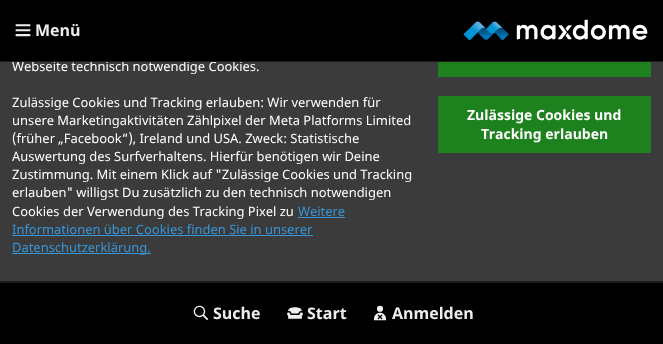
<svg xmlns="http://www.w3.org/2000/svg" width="663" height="344">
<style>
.a{font:bold 16px Noto Sans;fill:#eee}
.b{font:12.95px Noto Sans;fill:#fff}
.c{font:12.95px Noto Sans;fill:#3896da}
.d{font:bold 14px Noto Sans;fill:#fff}
</style>
<rect width="100%" height="100%" fill="#3b3b3b"/>
<path fill="#000" d="M0 0h663v61H0z"/>
<image href="1.png" x="15" y="24" width="16" height="13"/>
<image href="2.png" x="463" y="19" width="185" height="22"/>
<path fill="#000" d="M0 283h663v61H0z"/>
<path fill="#1b1b1b" d="M0 282h663v1H0z"/>
<image href="3.png" x="193" y="305" width="16" height="16"/>
<image href="4.png" x="287" y="307" width="16" height="12"/>
<image href="5.png" x="373" y="305" width="14" height="16"/>
<path fill="#1e1e1e" d="M0 281h663v1H0z"/>
<path fill="#3896da" d="M298 217h47v1H298z"/>
<path fill="#3896da" d="M12 235h301v1H12z"/>
<path fill="#3896da" d="M12 253h139v1H12z"/>
<path fill="#1d821d" d="M438 62h213v15H438z"/>
<path fill="#1d821d" d="M438 96h213v57H438z"/>
<text class="a" x="35" y="36">Menü</text>
<text class="a" x="213" y="319">Suche</text>
<text class="a" x="307" y="319">Start</text>
<text class="a" x="392" y="319">Anmelden</text>
<text class="b" x="12" y="71">Webseite technisch notwendige Cookies.</text>
<path fill="#1b1b1b" d="M0 61h663v1H0z"/>
<text class="b" x="12" y="107">Zulässige Cookies und Tracking erlauben: Wir verwenden für</text>
<text class="b" x="12" y="125">unsere Marketingaktivitäten Zählpixel der Meta Platforms Limited</text>
<text class="b" x="12" y="143">(früher „Facebook“), Ireland und USA. Zweck: Statistische</text>
<text class="b" x="12" y="161">Auswertung des Surfverhaltens. Hierfür benötigen wir Deine</text>
<text class="b" x="12" y="179">Zustimmung. Mit einem Klick auf "Zulässige Cookies und Tracking</text>
<text class="b" x="12" y="197">erlauben" willigst Du zusätzlich zu den technisch notwendigen</text>
<text class="b" x="12" y="216">Cookies der Verwendung des Tracking Pixel zu</text>
<text class="c" x="298" y="216">Weitere</text>
<text class="c" x="12" y="234">Informationen über Cookies finden Sie in unserer</text>
<text class="c" x="12" y="252">Datenschutzerklärung.</text>
<text class="d" x="467" y="120">Zulässige Cookies und</text>
<text class="d" x="481" y="139">Tracking erlauben</text>
</svg>
